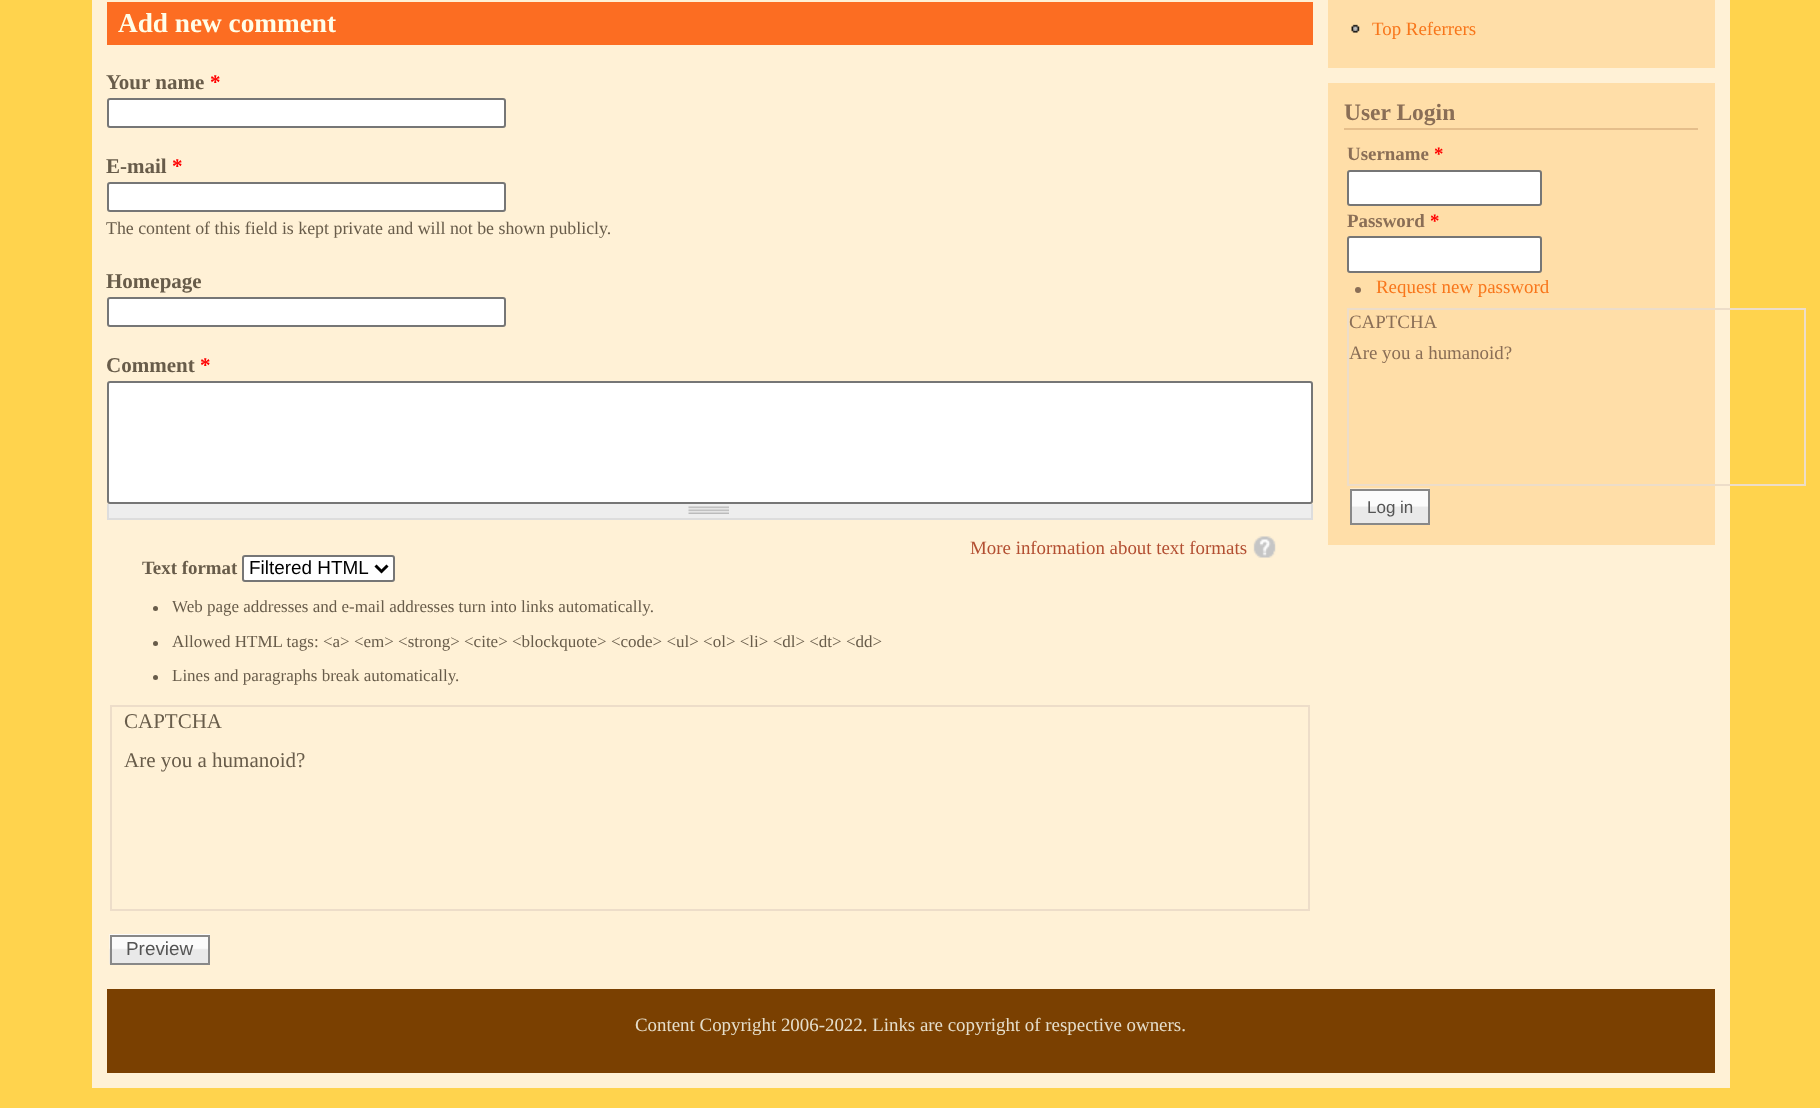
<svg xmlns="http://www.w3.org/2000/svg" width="1820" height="1108">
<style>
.a{font:bold 27.25px Liberation Serif;fill:#fffde8}
.b{font:bold 21px Liberation Serif;fill:#685c4a}
.c{font:bold 21px Liberation Serif;fill:#f00}
.d{font:17.85px Liberation Serif;fill:#685c4a}
.e{font:18.9px Liberation Serif;fill:#b34f32}
.f{font:bold 18.9px Liberation Serif;fill:#685c4a}
.g{font:18.9px Liberation Sans;fill:#000}
.h{font:17px Liberation Serif;fill:#685c4a}
.i{font:21px Liberation Serif;fill:#685c4a}
.j{font:18.9px Liberation Sans;fill:#555}
.k{font:18.9px Liberation Serif;fill:#f8761b}
.l{font:bold 23.5px Liberation Serif;fill:#8a6e56}
.m{font:bold 18.9px Liberation Serif;fill:#8a6e56}
.n{font:bold 18.9px Liberation Serif;fill:#f00}
.o{font:18.9px Liberation Serif;fill:#8a6e56}
.p{font:17px Liberation Sans;fill:#555}
.q{font:18.9px Liberation Serif;fill:#e5ddca}
</style>
<rect width="100%" height="100%" fill="#ffd34d"/>
<path fill="#fff1d6" d="M92 0h1638v1088H92z"/>
<path fill="#fc6d22" d="M107 2h1206v43H107z"/>
<rect fill="#fff" stroke="#767676" stroke-width="2" x="108" y="99" width="397" height="28" rx="2"/>
<rect fill="#fff" stroke="#767676" stroke-width="2" x="108" y="183" width="397" height="28" rx="2"/>
<rect fill="#fff" stroke="#767676" stroke-width="2" x="108" y="298" width="397" height="28" rx="2"/>
<rect fill="#fff" stroke="#767676" stroke-width="2" x="108" y="382" width="1204" height="121" rx="2"/>
<path fill="#eee" d="M109 504h1202v14H109z"/>
<image href="1.png" x="688" y="506" width="41" height="8"/>
<path fill="#ddd" d="M1311 504h2v15H1311z"/>
<path fill="#ddd" d="M107 518h1206v2H107z"/>
<path fill="#ddd" d="M107 504h2v15H107z"/>
<image href="2.png" x="1253" y="536" width="23" height="22"/>
<rect fill="#fff" stroke="#767676" stroke-width="2" x="243" y="556" width="151" height="25" rx="2"/>
<path fill="none" stroke="#000" stroke-width="3" d="M375.5 565.5l6 6l6-6"/>
<circle fill="#685c4a" cx="155.5" cy="608.5" r="2.5"/>
<circle fill="#685c4a" cx="155.5" cy="643.5" r="2.5"/>
<circle fill="#685c4a" cx="155.5" cy="677.5" r="2.5"/>
<path fill="none" stroke="#edddc9" stroke-width="2" d="M111 706h1198v204H111z"/>
<image href="3.png" x="109" y="934" width="101" height="30"/>
<path fill="none" stroke="#888" stroke-width="2" d="M111 936h98v28H111z"/>
<path fill="#ffdea8" d="M1328 0h387v68H1328z"/>
<image href="4.png" x="1351" y="24" width="9" height="9"/>
<path fill="#ffdea8" d="M1328 83h387v462H1328z"/>
<path fill="#e5be8b" d="M1344 128h354v2H1344z"/>
<rect fill="#fff" stroke="#767676" stroke-width="2" x="1348" y="171" width="193" height="34" rx="2"/>
<rect fill="#fff" stroke="#767676" stroke-width="2" x="1348" y="237" width="193" height="35" rx="2"/>
<circle fill="#8a6e56" cx="1358" cy="290" r="3"/>
<path fill="none" stroke="#edddc9" stroke-width="2" d="M1348 309h457v176H1348z"/>
<image href="5.png" x="1350" y="488" width="80" height="35"/>
<path fill="none" stroke="#888" stroke-width="2" d="M1351 490h78v34H1351z"/>
<path fill="#7a4001" d="M107 989h1608v84H107z"/>
<text class="a" x="118" y="32">Add new comment</text>
<text class="b" x="106" y="89">Your name</text>
<text class="c" x="210" y="89">*</text>
<text class="b" x="106" y="173">E-mail</text>
<text class="c" x="172" y="173">*</text>
<text class="d" x="106" y="234">The content of this field is kept private and will not be shown publicly.</text>
<text class="b" x="106" y="288">Homepage</text>
<text class="b" x="106" y="372">Comment</text>
<text class="c" x="200" y="372">*</text>
<text class="e" x="970" y="554">More information about text formats</text>
<text class="f" x="142" y="574">Text format</text>
<text class="g" x="249" y="574">Filtered HTML</text>
<text class="h" x="172" y="612">Web page addresses and e-mail addresses turn into links automatically.</text>
<text class="h" x="172" y="647">Allowed HTML tags: &lt;a&gt; &lt;em&gt; &lt;strong&gt; &lt;cite&gt; &lt;blockquote&gt; &lt;code&gt; &lt;ul&gt; &lt;ol&gt; &lt;li&gt; &lt;dl&gt; &lt;dt&gt; &lt;dd&gt;</text>
<text class="h" x="172" y="681">Lines and paragraphs break automatically.</text>
<text class="i" x="124" y="728">CAPTCHA</text>
<text class="i" x="124" y="767">Are you a humanoid?</text>
<text class="j" x="126" y="955">Preview</text>
<text class="k" x="1372" y="35">Top Referrers</text>
<text class="l" x="1344" y="120">User Login</text>
<text class="m" x="1347" y="160">Username</text>
<text class="n" x="1434" y="160">*</text>
<text class="m" x="1347" y="227">Password</text>
<text class="n" x="1430" y="227">*</text>
<text class="k" x="1376" y="293">Request new password</text>
<text class="o" x="1349" y="328">CAPTCHA</text>
<text class="o" x="1349" y="359">Are you a humanoid?</text>
<text class="p" x="1367" y="513">Log in</text>
<text class="q" x="635" y="1031">Content Copyright 2006-2022. Links are copyright of respective owners.</text>
</svg>
